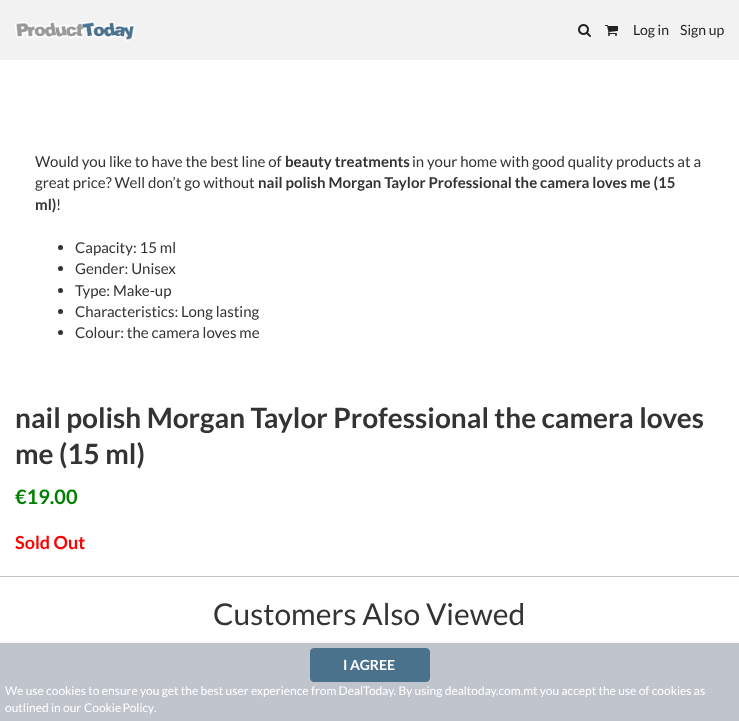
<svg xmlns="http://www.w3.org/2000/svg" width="739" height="721">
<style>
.a{font:14px Lato;fill:#232323}
.b{font:15px Lato;fill:#333}
.c{font:bold 15px Lato;fill:#333}
.d{font:bold 28px Lato;fill:#333}
.e{font:bold 20px Lato;fill:#008000}
.f{font:bold 18px Lato;fill:#f00}
.g{font:30px Lato;fill:#333}
.h{font:bold 14px Lato;fill:#fff}
.i{font:12px Lato;fill:#fff}
</style>
<rect width="100%" height="100%" fill="#fff"/>
<path fill="#f2f2f2" d="M0 0h739v60H0z"/>
<image href="1.png" x="15" y="21" width="120" height="20"/>
<image href="2.png" x="578" y="24" width="13" height="13"/>
<image href="3.png" x="605" y="25" width="13" height="11"/>
<circle fill="#333" cx="60.5" cy="247.5" r="2.5"/>
<circle fill="#333" cx="60.5" cy="268.5" r="2.5"/>
<circle fill="#333" cx="60.5" cy="290.5" r="2.5"/>
<circle fill="#333" cx="60.5" cy="311.5" r="2.5"/>
<circle fill="#333" cx="60.5" cy="332.5" r="2.5"/>
<path fill="#c5c5c5" d="M0 576h739v1H0z"/>
<path fill="#0000001a" filter="blur(2.5px)" d="M-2 644h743v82H-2z"/>
<path fill="#bfc4cd" d="M0 643h739v78H0z"/>
<rect fill="#4a728d" stroke="#4a728d" x="310.5" y="648.5" width="119" height="33" rx="3.5"/>
<text class="a" x="633" y="35">Log in</text>
<text class="a" x="680" y="35">Sign up</text>
<text class="b" x="35" y="167">Would you like to have the best line of</text>
<text class="c" x="285" y="167">beauty treatments</text>
<text class="b" x="412" y="167">in your home with good quality products at a</text>
<text class="b" x="35" y="188">great price? Well don’t go without</text>
<text class="c" x="258" y="188">nail polish Morgan Taylor Professional the camera loves me (15</text>
<text class="c" x="35" y="210">ml)</text>
<text class="b" x="56" y="210">!</text>
<text class="b" x="75" y="253">Capacity: 15 ml</text>
<text class="b" x="75" y="274">Gender: Unisex</text>
<text class="b" x="75" y="296">Type: Make-up</text>
<text class="b" x="75" y="317">Characteristics: Long lasting</text>
<text class="b" x="75" y="338">Colour: the camera loves me</text>
<text class="d" x="15" y="428">nail polish Morgan Taylor Professional the camera loves</text>
<text class="d" x="15" y="464">me (15 ml)</text>
<text class="e" x="15" y="504">€19.00</text>
<text class="f" x="15" y="549">Sold Out</text>
<text class="g" x="213" y="625">Customers Also Viewed</text>
<text class="h" x="343" y="670">I AGREE</text>
<text class="i" x="5" y="695">We use cookies to ensure you get the best user experience from DealToday. By using dealtoday.com.mt you accept the use of cookies as</text>
<text class="i" x="5" y="712">outlined in our</text>
<text class="i" x="84" y="712" word-spacing="-1">Cookie Policy</text>
<text class="i" x="154" y="712">.</text>
</svg>
